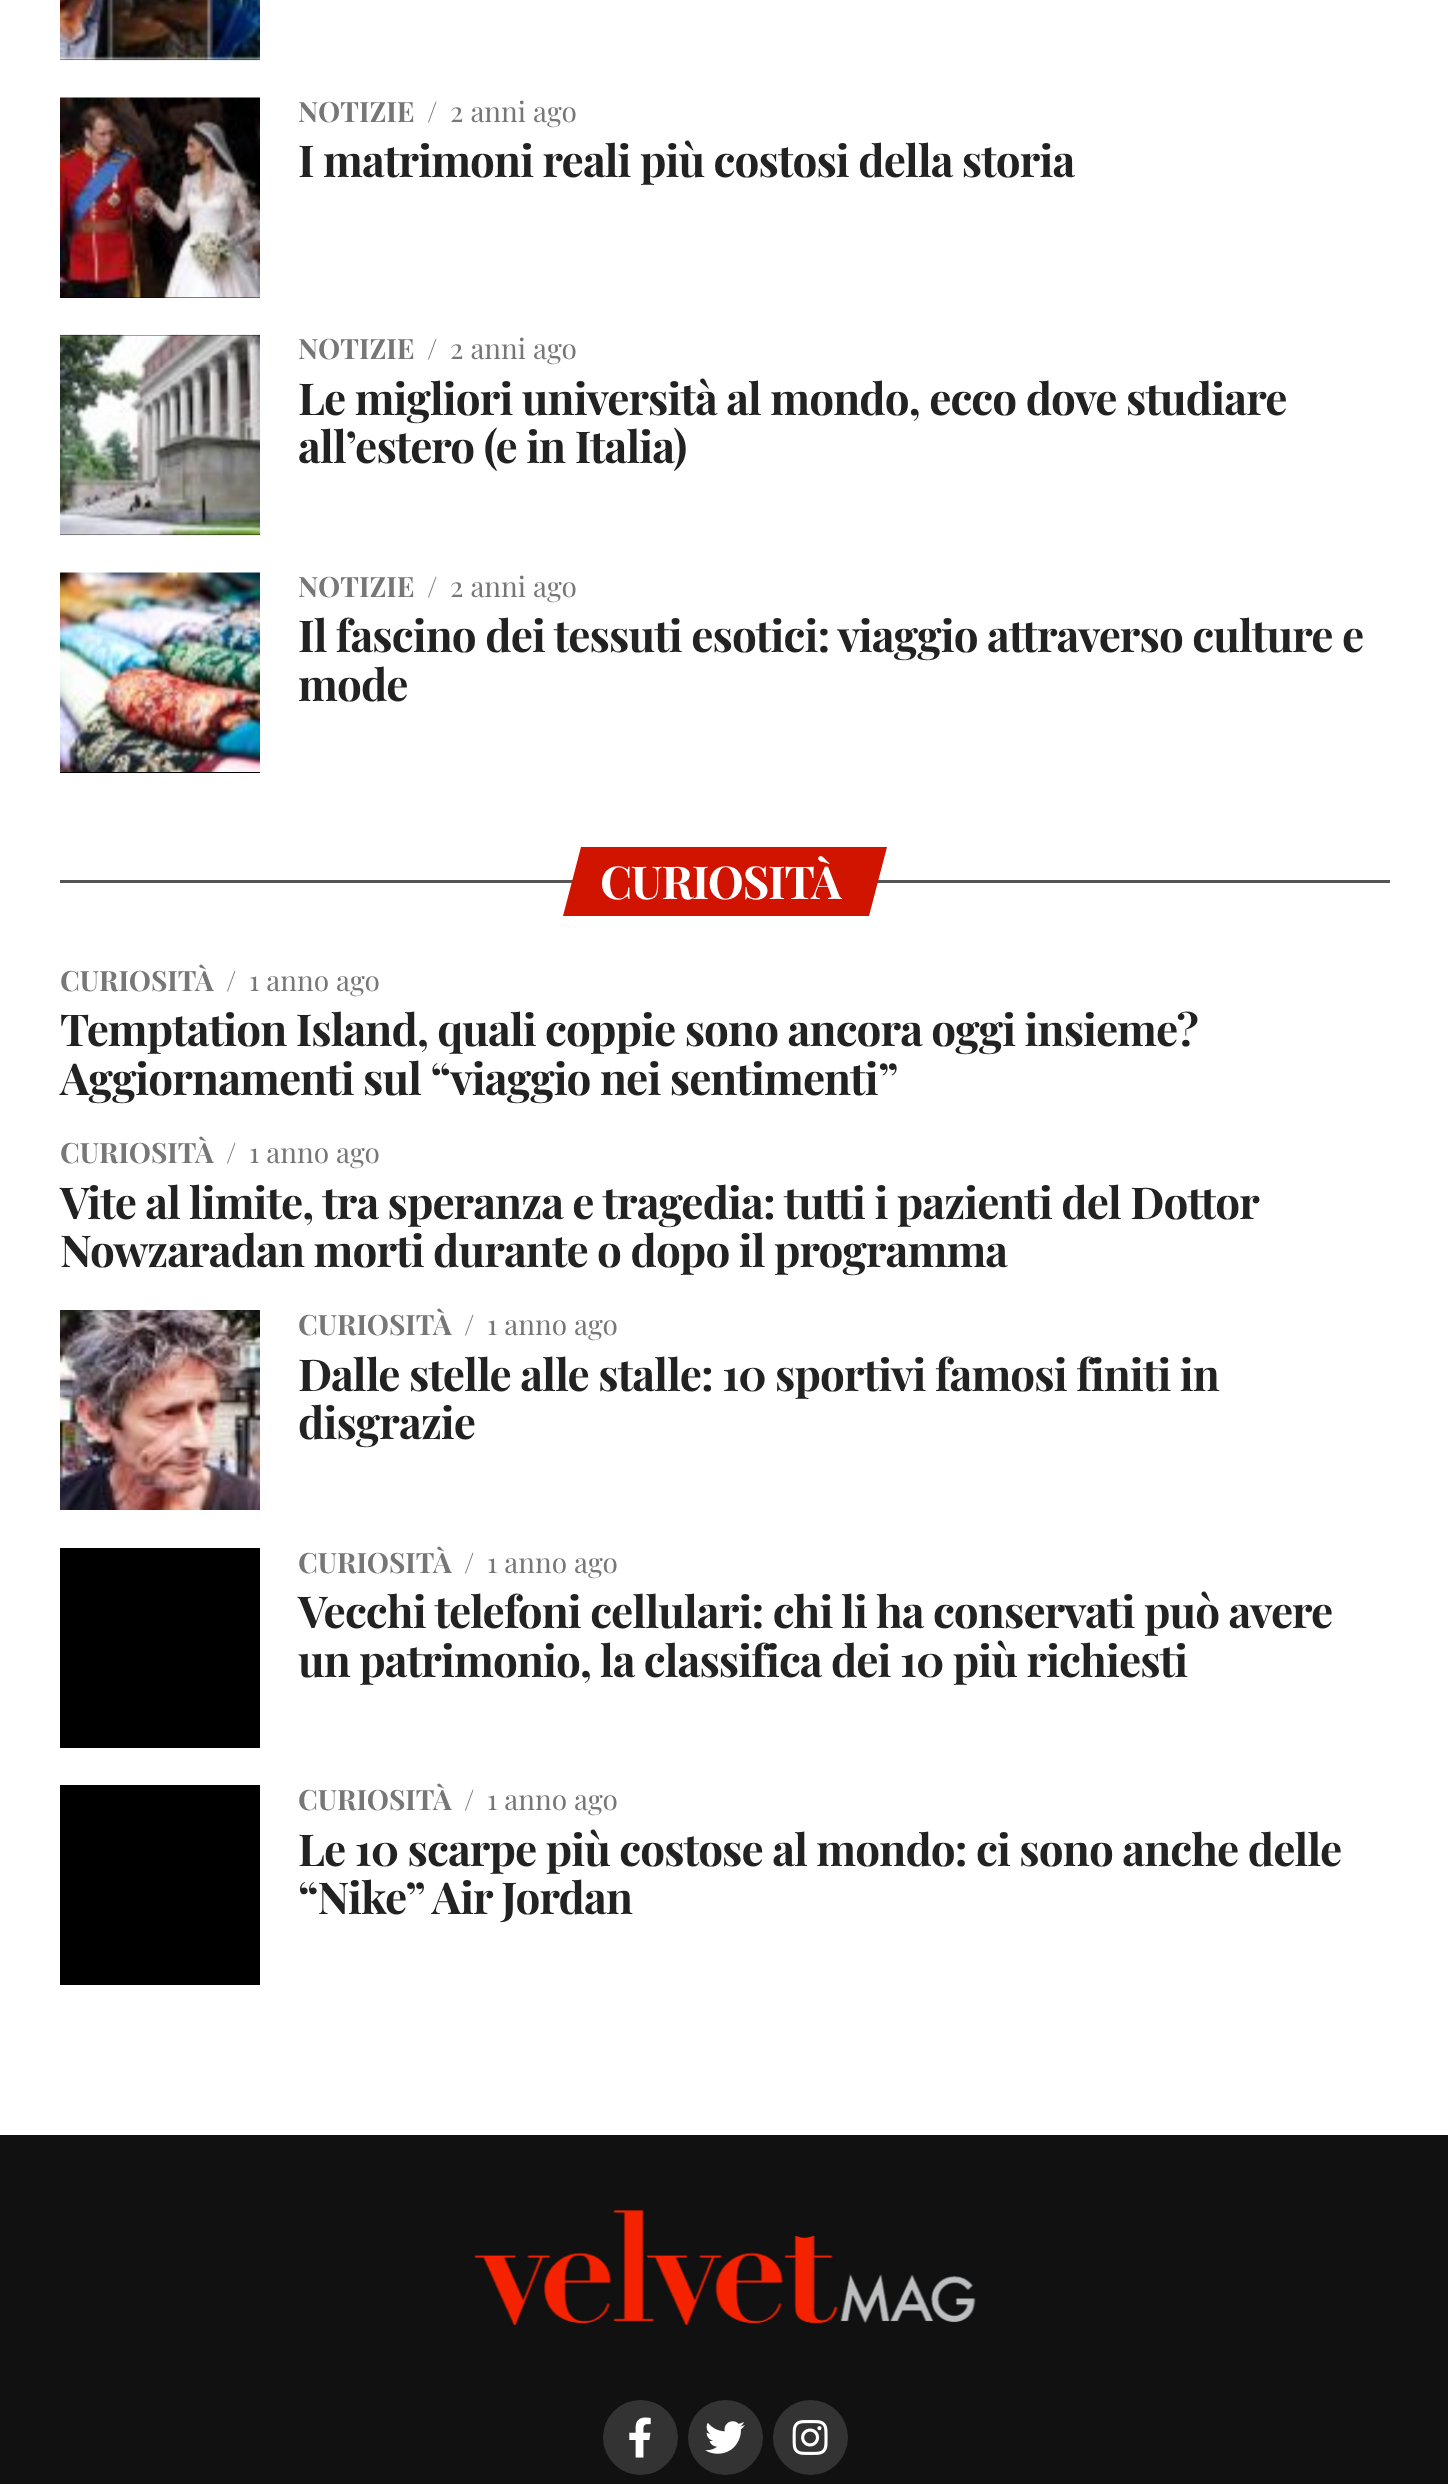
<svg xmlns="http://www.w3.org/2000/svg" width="1448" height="2484">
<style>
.a{font:bold 28px Playfair Display;fill:#777}
.b{font:28px Playfair Display;fill:#777}
.c{font:bold 44px Playfair Display;letter-spacing:-0.88px;fill:#222}
.d{font:bold 45.5px Playfair Display;letter-spacing:-1px;fill:#fff}
</style>
<rect width="100%" height="100%" fill="#fff"/>
<path fill="#000" d="M60 59h200v1H60z"/>
<image href="1.png" x="60" y="0" width="200" height="61"/>
<path fill="#000" d="M60 297h200v1H60z"/>
<image href="2.png" x="60" y="97" width="200" height="201"/>
<path fill="#000" d="M60 335h200v200H60z"/>
<image href="3.png" x="60" y="334" width="200" height="202"/>
<path fill="#000" d="M60 772h200v1H60z"/>
<image href="4.png" x="60" y="572" width="200" height="200"/>
<path fill="#555" d="M60 880h1330v3H60z"/>
<path fill="#d11400" d="M581 847h306l-18 69h-306z"/>
<image href="5.png" x="60" y="1310" width="200" height="200"/>
<path fill="#000" d="M60 1548h200v200H60z"/>
<path fill="#000" d="M60 1785h200v200H60z"/>
<path fill="#111" d="M0 2135h1448v349H0z"/>
<image href="6.png" x="474" y="2210" width="502" height="115"/>
<circle fill="#333" cx="640.5" cy="2437.5" r="37.5"/>
<image href="7.png" x="629" y="2417" width="22" height="41"/>
<circle fill="#333" cx="725.5" cy="2437.5" r="37.5"/>
<image href="8.png" x="705" y="2421" width="40" height="33"/>
<circle fill="#333" cx="810.5" cy="2437.5" r="37.5"/>
<image href="9.png" x="792" y="2420" width="36" height="35"/>
<text class="a" x="298" y="122">NOTIZIE</text>
<text class="b" x="427" y="122">/</text>
<text class="b" x="450" y="122">2 anni ago</text>
<text class="c" x="298" y="177">I matrimoni reali più costosi della storia</text>
<text class="a" x="298" y="359">NOTIZIE</text>
<text class="b" x="427" y="359">/</text>
<text class="b" x="450" y="359">2 anni ago</text>
<text class="c" x="298" y="415">Le migliori università al mondo, ecco dove studiare</text>
<text class="c" x="298" y="463">all’estero (e in Italia)</text>
<text class="a" x="298" y="597">NOTIZIE</text>
<text class="b" x="427" y="597">/</text>
<text class="b" x="450" y="597">2 anni ago</text>
<text class="c" x="298" y="652">Il fascino dei tessuti esotici: viaggio attraverso culture e</text>
<text class="c" x="298" y="701">mode</text>
<text class="d" x="600" y="899">CURIOSITÀ</text>
<text class="a" x="60" y="991">CURIOSITÀ</text>
<text class="b" x="226" y="991">/</text>
<text class="b" x="249" y="991">1 anno ago</text>
<text class="c" x="60" y="1046">Temptation Island, quali coppie sono ancora oggi insieme?</text>
<text class="c" x="60" y="1095">Aggiornamenti sul “viaggio nei sentimenti”</text>
<text class="a" x="60" y="1163">CURIOSITÀ</text>
<text class="b" x="226" y="1163">/</text>
<text class="b" x="249" y="1163">1 anno ago</text>
<text class="c" x="60" y="1219">Vite al limite, tra speranza e tragedia: tutti i pazienti del Dottor</text>
<text class="c" x="60" y="1267">Nowzaradan morti durante o dopo il programma</text>
<text class="a" x="298" y="1335">CURIOSITÀ</text>
<text class="b" x="464" y="1335">/</text>
<text class="b" x="487" y="1335">1 anno ago</text>
<text class="c" x="298" y="1391">Dalle stelle alle stalle: 10 sportivi famosi finiti in</text>
<text class="c" x="298" y="1439">disgrazie</text>
<text class="a" x="298" y="1573">CURIOSITÀ</text>
<text class="b" x="464" y="1573">/</text>
<text class="b" x="487" y="1573">1 anno ago</text>
<text class="c" x="298" y="1628">Vecchi telefoni cellulari: chi li ha conservati può avere</text>
<text class="c" x="298" y="1677">un patrimonio, la classifica dei 10 più richiesti</text>
<text class="a" x="298" y="1810">CURIOSITÀ</text>
<text class="b" x="464" y="1810">/</text>
<text class="b" x="487" y="1810">1 anno ago</text>
<text class="c" x="298" y="1866">Le 10 scarpe più costose al mondo: ci sono anche delle</text>
<text class="c" x="298" y="1914">“Nike” Air Jordan</text>
</svg>
